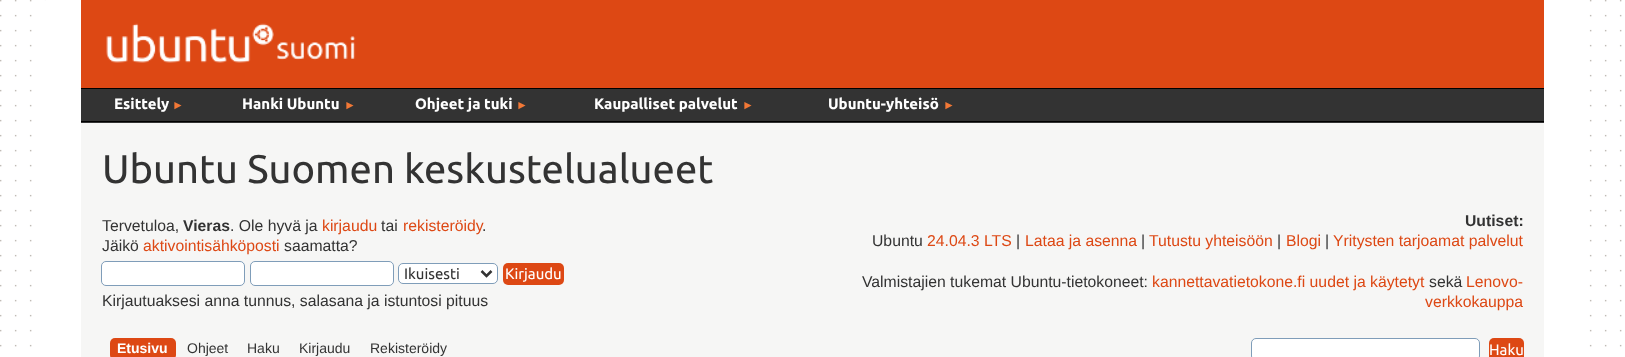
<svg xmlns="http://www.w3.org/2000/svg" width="1625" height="357">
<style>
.a{font:bold 15px Ubuntu;fill:#fff}
.b{font:bold 12px Liberation Sans;fill:#f27836}
.c{font:40px Ubuntu;fill:#333}
.d{font:15.75px Liberation Sans;fill:#333}
.e{font:bold 15.75px Liberation Sans;fill:#333}
.f{font:15.75px Liberation Sans;fill:#dd4814}
.g{font:15px Ubuntu;fill:#333}
.h{font:15px Ubuntu;fill:#fff}
.i{font:bold 14px Liberation Sans;fill:#fff}
.j{font:14px Liberation Sans;fill:#333}
</style>
<rect width="100%" height="100%" fill="#fff"/>
<image href="1.png" x="0" y="0" width="1622" height="347"/>
<rect fill="#fff" x="41" width="1544" height="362" rx="5"/>
<path fill="#f6f6f5" d="M81 123h1463v234H81z"/>
<path fill="#dd4814" d="M81 0h1463v88H81z"/>
<image href="2.png" x="106" y="23" width="250" height="40"/>
<path fill="#333" d="M81 89h1463v34H81z"/>
<path fill="#000" d="M81 88h1463v1H81z"/>
<path fill="#000" d="M81 121h1463v1H81z"/>
<rect fill="#fff" stroke="#7f9db9" x="101.5" y="261.5" width="143" height="24" rx="4.5"/>
<rect fill="#fff" stroke="#7f9db9" x="250.5" y="261.5" width="143" height="24" rx="4.5"/>
<rect fill="#fff" stroke="#7f9db9" x="398.5" y="263.5" width="99" height="20" rx="4.5"/>
<path fill="none" stroke="#333" stroke-width="2.5" d="M481.5 271l5 5l5-5"/>
<rect fill="#dd4814" x="503" y="263" width="61" height="22" rx="5"/>
<rect fill="#dd4814" x="110" y="338" width="66" height="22" rx="5"/>
<rect fill="#fff" stroke="#7f9db9" x="1251.5" y="338.5" width="228" height="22" rx="4.5"/>
<rect fill="#dd4814" x="1489" y="338" width="35" height="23" rx="5"/>
<text class="a" x="114" y="109">Esittely</text>
<text class="b" x="172" y="109">►</text>
<text class="a" x="242" y="109">Hanki Ubuntu</text>
<text class="b" x="344" y="109">►</text>
<text class="a" x="415" y="109">Ohjeet ja tuki</text>
<text class="b" x="516" y="109">►</text>
<text class="a" x="594" y="109">Kaupalliset palvelut</text>
<text class="b" x="742" y="109">►</text>
<text class="a" x="828" y="109">Ubuntu-yhteisö</text>
<text class="b" x="943" y="109">►</text>
<text class="c" x="102" y="183">Ubuntu Suomen keskustelualueet</text>
<text class="d" x="102" y="231">Tervetuloa,</text>
<text class="e" x="183" y="231">Vieras</text>
<text class="d" x="230" y="231">. Ole hyvä ja</text>
<text class="f" x="322" y="231">kirjaudu</text>
<text class="d" x="381" y="231">tai</text>
<text class="f" x="403" y="231">rekisteröidy</text>
<text class="d" x="482" y="231">.</text>
<text class="d" x="102" y="251">Jäikö</text>
<text class="f" x="143" y="251">aktivointisähköposti</text>
<text class="d" x="284" y="251">saamatta?</text>
<text class="g" x="404" y="279">Ikuisesti</text>
<text class="h" x="505" y="279">Kirjaudu</text>
<text class="d" x="102" y="306">Kirjautuaksesi anna tunnus, salasana ja istuntosi pituus</text>
<text class="e" x="1465" y="226">Uutiset:</text>
<text class="d" x="872" y="246">Ubuntu</text>
<text class="f" x="927" y="246">24.04.3 LTS</text>
<text class="d" x="1016" y="246">|</text>
<text class="f" x="1025" y="246">Lataa ja asenna</text>
<text class="d" x="1141" y="246">|</text>
<text class="f" x="1149" y="246">Tutustu yhteisöön</text>
<text class="d" x="1277" y="246">|</text>
<text class="f" x="1286" y="246">Blogi</text>
<text class="d" x="1325" y="246">|</text>
<text class="f" x="1333" y="246">Yritysten tarjoamat palvelut</text>
<text class="d" x="862" y="287">Valmistajien tukemat Ubuntu-tietokoneet:</text>
<text class="f" x="1152" y="287">kannettavatietokone.fi uudet ja käytetyt</text>
<text class="d" x="1429" y="287">sekä</text>
<text class="f" x="1466" y="287">Lenovo-</text>
<text class="f" x="1425" y="307">verkkokauppa</text>
<text class="i" x="117" y="353">Etusivu</text>
<text class="j" x="187" y="353">Ohjeet</text>
<text class="j" x="247" y="353">Haku</text>
<text class="j" x="299" y="353">Kirjaudu</text>
<text class="j" x="370" y="353">Rekisteröidy</text>
<text class="h" x="1489" y="355">Haku</text>
</svg>
